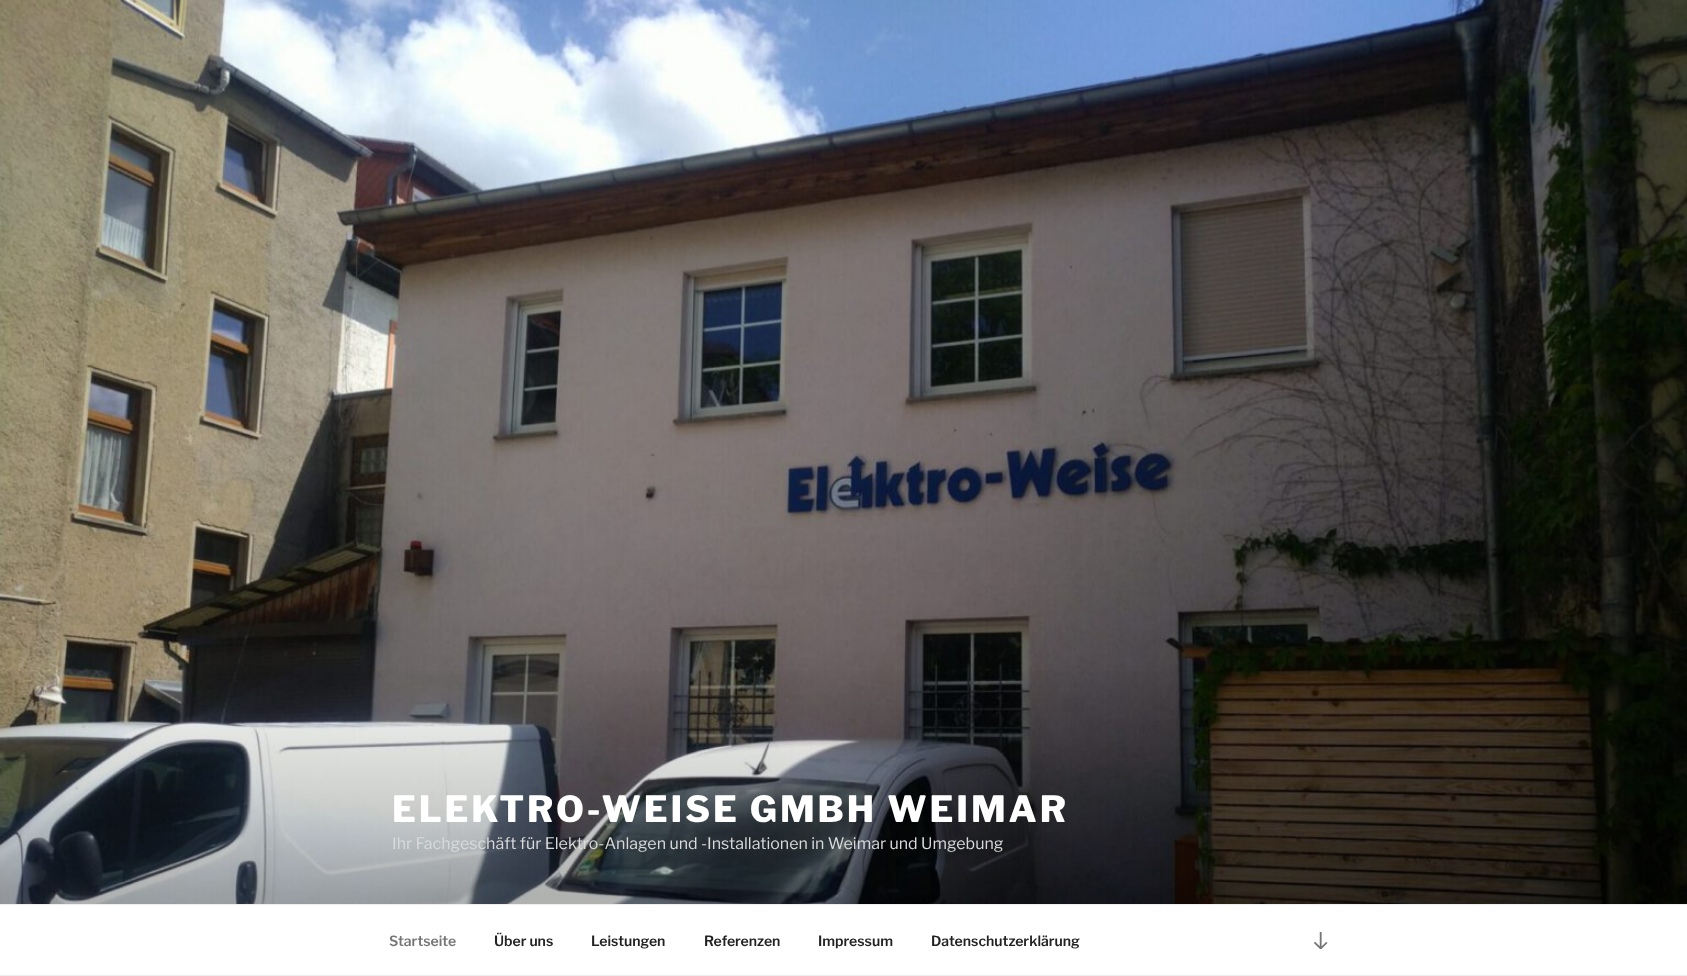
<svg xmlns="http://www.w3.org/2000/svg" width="1687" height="976">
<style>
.a{font:800 36px Libre Franklin;letter-spacing:2.9px;fill:#fff}
.b{font:16px Libre Franklin;fill:#d9dadb}
.c{font:600 14px Libre Franklin;fill:#767676}
.d{font:600 14px Libre Franklin;fill:#222}
</style>
<defs>
<linearGradient id="g1" gradientUnits="userSpaceOnUse" x1="844" y1="654" x2="844" y2="976"><stop offset="0" stop-color="#000" stop-opacity="0"/><stop offset="0.75" stop-color="#000" stop-opacity="0.3"/><stop offset="1" stop-color="#000" stop-opacity="0.3"/></linearGradient>
</defs>
<rect width="100%" height="100%" fill="#fff"/>
<image href="1.png" x="0" y="0" width="1687" height="904"/>
<path fill="url(#g1)" d="M0 671h1687v233H0z"/>
<path fill="#eee" d="M0 904h1687v1H0z"/>
<path fill="#eee" d="M0 975h1687v1H0z"/>
<image href="2.png" x="1314" y="931" width="14" height="19"/>
<text class="a" x="392" y="822">ELEKTRO-WEISE GMBH WEIMAR</text>
<text class="b" x="392" y="849">Ihr Fachgeschäft für Elektro-Anlagen und -Installationen in Weimar und Umgebung</text>
<text class="c" x="389" y="946">Startseite</text>
<text class="d" x="494" y="946">Über uns</text>
<text class="d" x="591" y="946">Leistungen</text>
<text class="d" x="704" y="946">Referenzen</text>
<text class="d" x="818" y="946">Impressum</text>
<text class="d" x="931" y="946">Datenschutzerklärung</text>
</svg>
